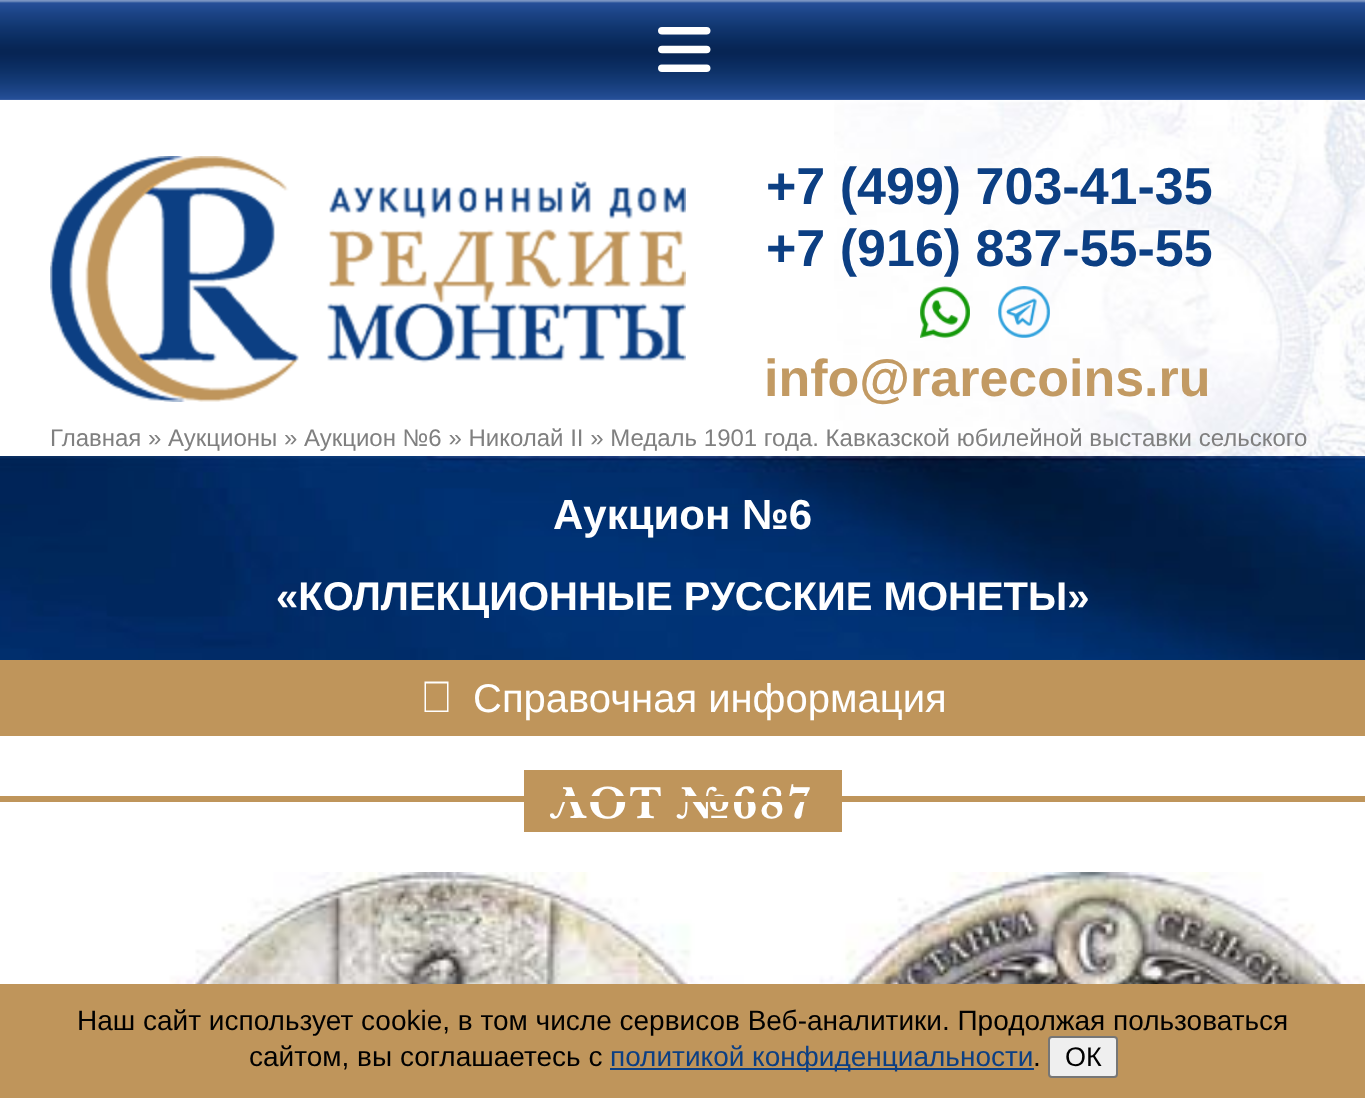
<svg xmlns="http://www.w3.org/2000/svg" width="1365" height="1098">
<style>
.a{font:bold 52px Liberation Sans;fill:#0c3f83}
.b{font:bold 52px Liberation Sans;fill:#c29a63}
.c{font:24px Liberation Sans;fill:#808080}
.d{font:bold 42px Liberation Sans;fill:#fff}
.e{font:bold 40px Liberation Sans;fill:#fff}
.f{font:40px Liberation Sans;fill:#fff}
.g{font:bold 46px 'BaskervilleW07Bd';letter-spacing:2px;fill:#fff}
.h{font:28px Liberation Sans;fill:#000}
.i{font:28px Liberation Sans;fill:#0c3f83}
.j{font:27px Liberation Sans;fill:#000}
</style>
<rect width="100%" height="100%" fill="#fff"/>
<image href="1.png" x="0" y="0" width="1365" height="100"/>
<image href="2.png" x="658" y="27" width="53" height="45"/>
<image href="3.png" x="834" y="100" width="531" height="356"/>
<image href="4.png" x="50" y="156" width="636" height="246"/>
<image href="5.png" x="920" y="286" width="50" height="52"/>
<image href="6.png" x="998" y="286" width="52" height="52"/>
<image href="7.png" x="0" y="456" width="1365" height="204"/>
<path fill="#bf955b" d="M0 660h1365v76H0z"/>
<path fill="#fff" d="M424.5 681.5h24v30.5h-24zm1.5 2v27h21v-27z"/>
<path fill="#bf955b" d="M524 770h318v62H524z"/>
<image href="8.png" x="118" y="872" width="1247" height="112"/>
<path fill="#bf955b" d="M0 984h1365v114H0z"/>
<path fill="#0c3f83" d="M610 1068h424v2H610z"/>
<rect fill="#efefef" stroke="#767676" stroke-width="2" x="1049" y="1037" width="68" height="40" rx="3"/>
<text class="a" x="766" y="204">+7 (499) 703-41-35</text>
<text class="a" x="766" y="266">+7 (916) 837-55-55</text>
<text class="b" x="764" y="396">info@rarecoins.ru</text>
<text class="c" x="50" y="446">Главная » Аукционы » Аукцион №6 » Николай II » Медаль 1901 года. Кавказской юбилейной выставки сельского</text>
<text class="d" x="553" y="529">Аукцион №6</text>
<text class="e" x="276" y="610">«КОЛЛЕКЦИОННЫЕ РУССКИЕ МОНЕТЫ»</text>
<text class="f" x="473" y="712">Справочная информация</text>
<text class="g" x="551" y="818">ЛОТ №687</text>
<path fill="#bf955b" d="M0 796h1365v6H0z"/>
<text class="h" x="77" y="1030">Наш сайт использует сооkiе, в том числе сервисов Веб-аналитики. Продолжая пользоваться</text>
<text class="h" x="249" y="1066">сайтом, вы соглашаетесь с</text>
<text class="i" x="610" y="1066">политикой конфиденциальности</text>
<text class="h" x="1033" y="1066">.</text>
<text class="j" x="1065" y="1066">ОК</text>
</svg>
